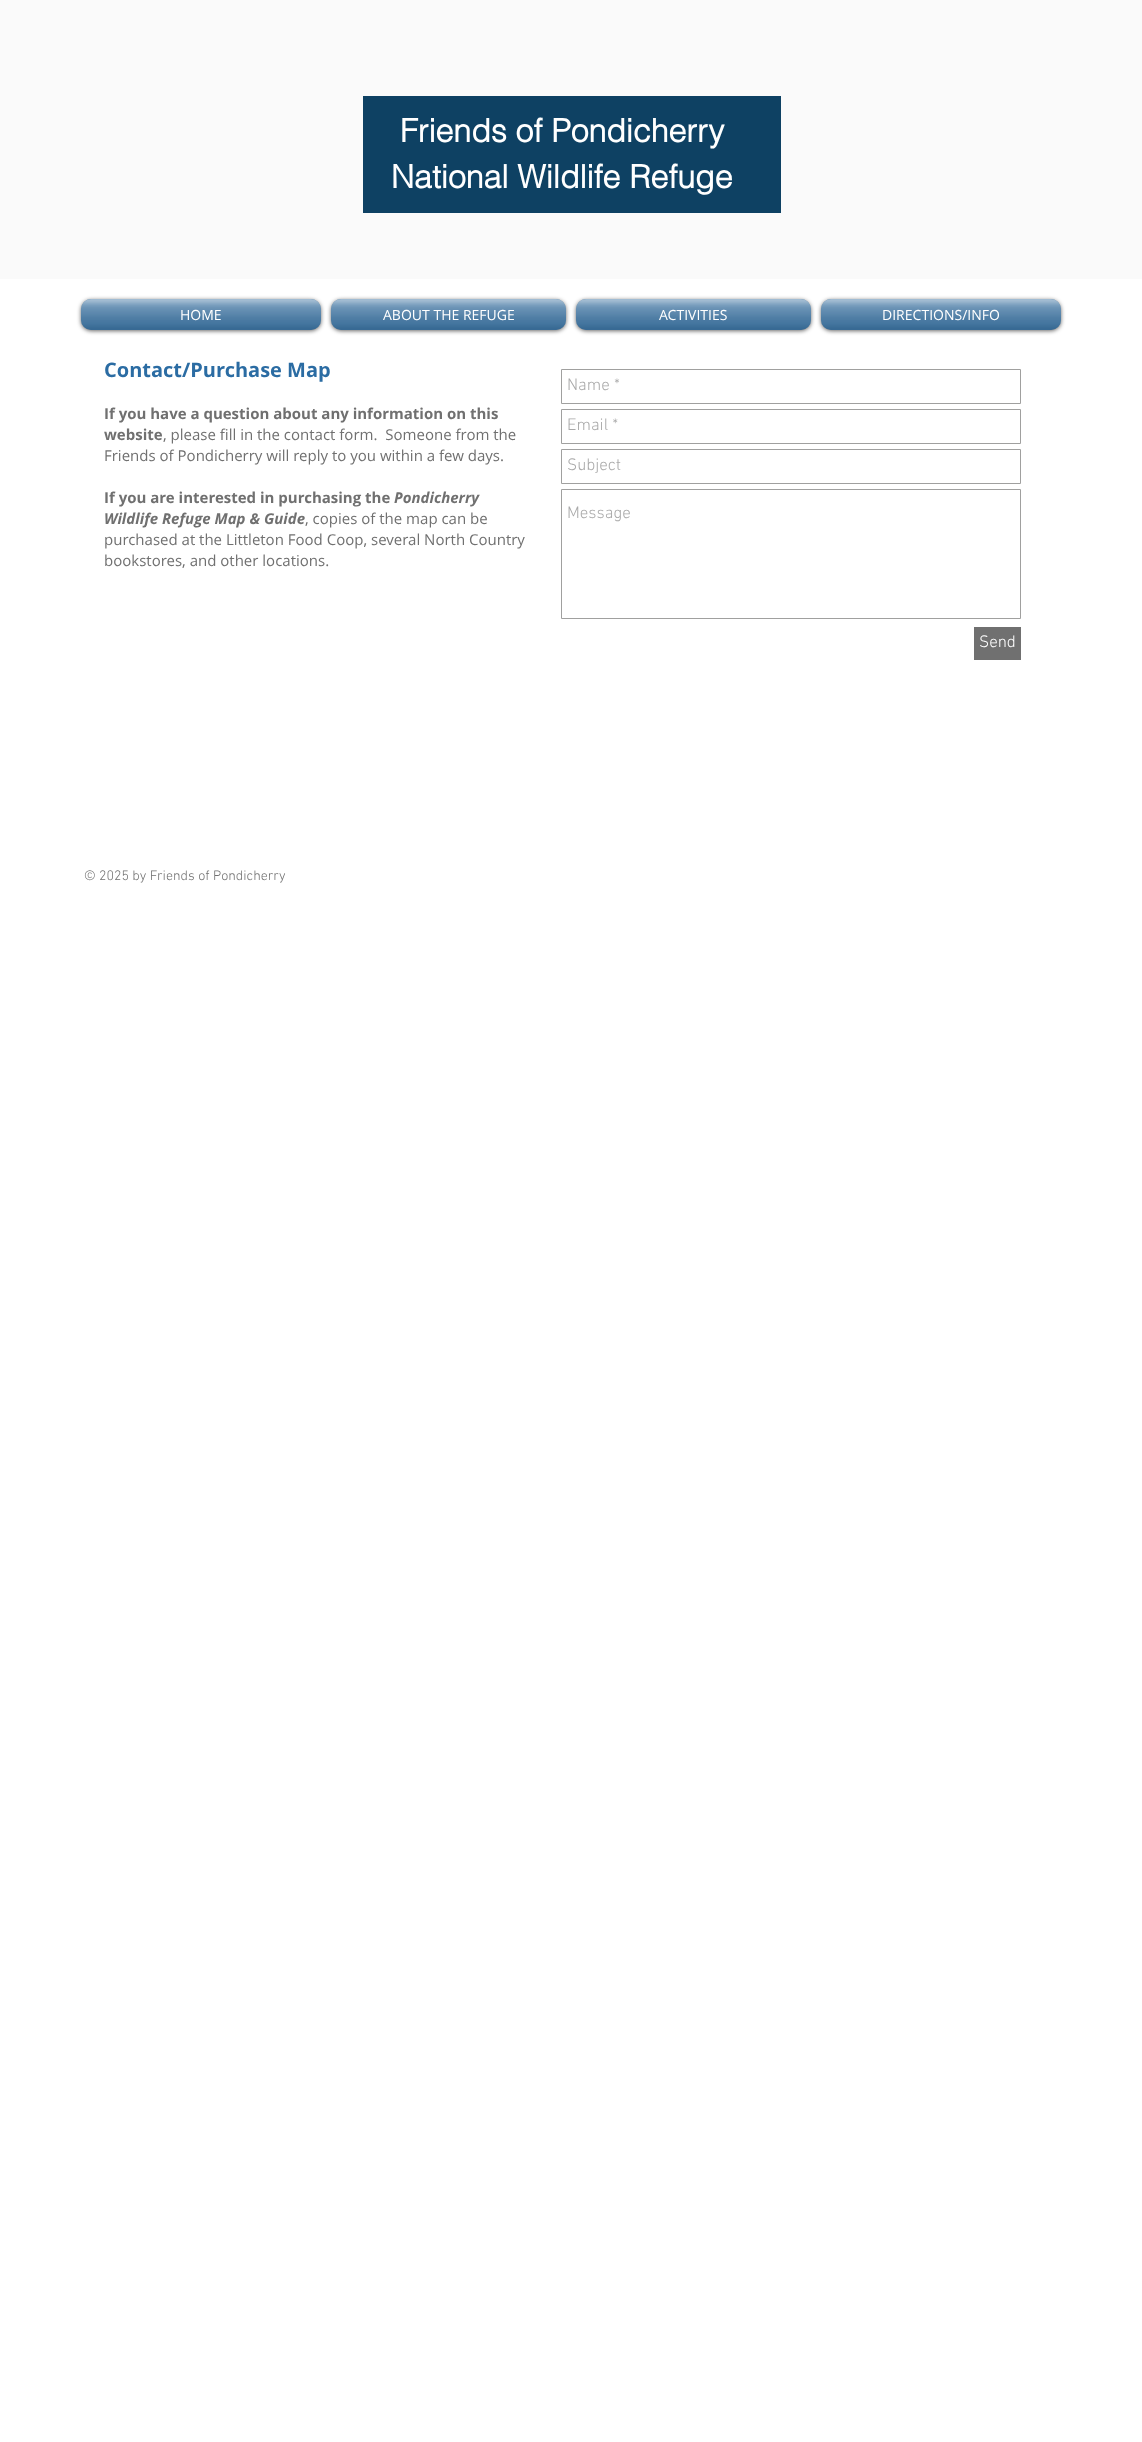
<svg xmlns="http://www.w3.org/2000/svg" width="1142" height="2442">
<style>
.a{font:bold 32px helvetica;fill:#fff}
.b{font:14px Open Sans;fill:#fff}
.c{font:bold 20px Open Sans;fill:#2b6ca3}
.d{font:bold 15px Open Sans;fill:#707070}
.e{font:15px Open Sans;fill:#707070}
.f{font:italic bold 15px Open Sans;fill:#707070}
.g{font:300 17px 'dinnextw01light';fill:#a9a9a9}
.h{font:300 17px 'dinnextw01light';fill:#fff}
.i{font:300 14px 'dinnextw01light';fill:#707070}
</style>
<rect width="100%" height="100%" fill="#fff"/>
<path fill="#fafafa" d="M0 0h1142v279H0z"/>
<path fill="#0e4163" d="M363 96h418v117H363z"/>
<rect fill="#00000099" filter="blur(2px)" x="81" y="300" width="240" height="31" rx="10"/>
<rect fill="#2b6ca3" x="81" y="299" width="240" height="31" rx="10"/>
<image href="1.png" x="81" y="299" width="240" height="31"/>
<image href="2.png" x="81" y="299" width="240" height="31"/>
<rect fill="#00000099" filter="blur(2px)" x="331" y="300" width="235" height="31" rx="10"/>
<rect fill="#2b6ca3" x="331" y="299" width="235" height="31" rx="10"/>
<image href="3.png" x="331" y="299" width="235" height="31"/>
<image href="4.png" x="331" y="299" width="235" height="31"/>
<rect fill="#00000099" filter="blur(2px)" x="576" y="300" width="235" height="31" rx="10"/>
<rect fill="#2b6ca3" x="576" y="299" width="235" height="31" rx="10"/>
<image href="3.png" x="576" y="299" width="235" height="31"/>
<image href="4.png" x="576" y="299" width="235" height="31"/>
<rect fill="#00000099" filter="blur(2px)" x="821" y="300" width="240" height="31" rx="10"/>
<rect fill="#2b6ca3" x="821" y="299" width="240" height="31" rx="10"/>
<image href="1.png" x="821" y="299" width="240" height="31"/>
<image href="2.png" x="821" y="299" width="240" height="31"/>
<path fill="none" stroke="#a0a09f" d="M561.5 369.5h459v34H561.5z"/>
<path fill="none" stroke="#a0a09f" d="M561.5 409.5h459v34H561.5z"/>
<path fill="none" stroke="#a0a09f" d="M561.5 449.5h459v34H561.5z"/>
<path fill="none" stroke="#a0a09f" d="M561.5 489.5h459v129H561.5z"/>
<path fill="#707070" d="M974 627h47v33H974z"/>
<text class="a" x="400" y="142">Friends of Pondicherry</text>
<text class="a" x="391" y="188">National Wildlife Refuge</text>
<text class="b" x="180" y="320">HOME</text>
<text class="b" x="383" y="320">ABOUT THE REFUGE</text>
<text class="b" x="659" y="320">ACTIVITIES</text>
<text class="b" x="882" y="320">DIRECTIONS/INFO</text>
<text class="c" x="104" y="377">Contact/Purchase Map</text>
<text class="d" x="104" y="419">If you have a question about any information on this</text>
<text class="d" x="104" y="440">website</text>
<text class="e" xml:space="preserve" x="163" y="440">, please fill in the contact form.  Someone from the</text>
<text class="e" x="104" y="461">Friends of Pondicherry will reply to you within a few days.</text>
<text class="d" x="104" y="503">If you are interested in purchasing the</text>
<text class="f" x="394" y="503">Pondicherry</text>
<text class="f" x="104" y="524">Wildlife Refuge Map &amp; Guide</text>
<text class="e" x="305" y="524">, copies of the map can be</text>
<text class="e" x="104" y="545">purchased at the Littleton Food Coop, several North Country</text>
<text class="e" x="104" y="566">bookstores, and other locations.</text>
<text class="g" x="567" y="390">Name *</text>
<text class="g" x="567" y="430">Email *</text>
<text class="g" x="567" y="470">Subject</text>
<text class="g" x="567" y="518">Message</text>
<text class="h" x="979" y="647">Send</text>
<text class="i" x="84" y="880">© 2025 by Friends of Pondicherry</text>
</svg>
